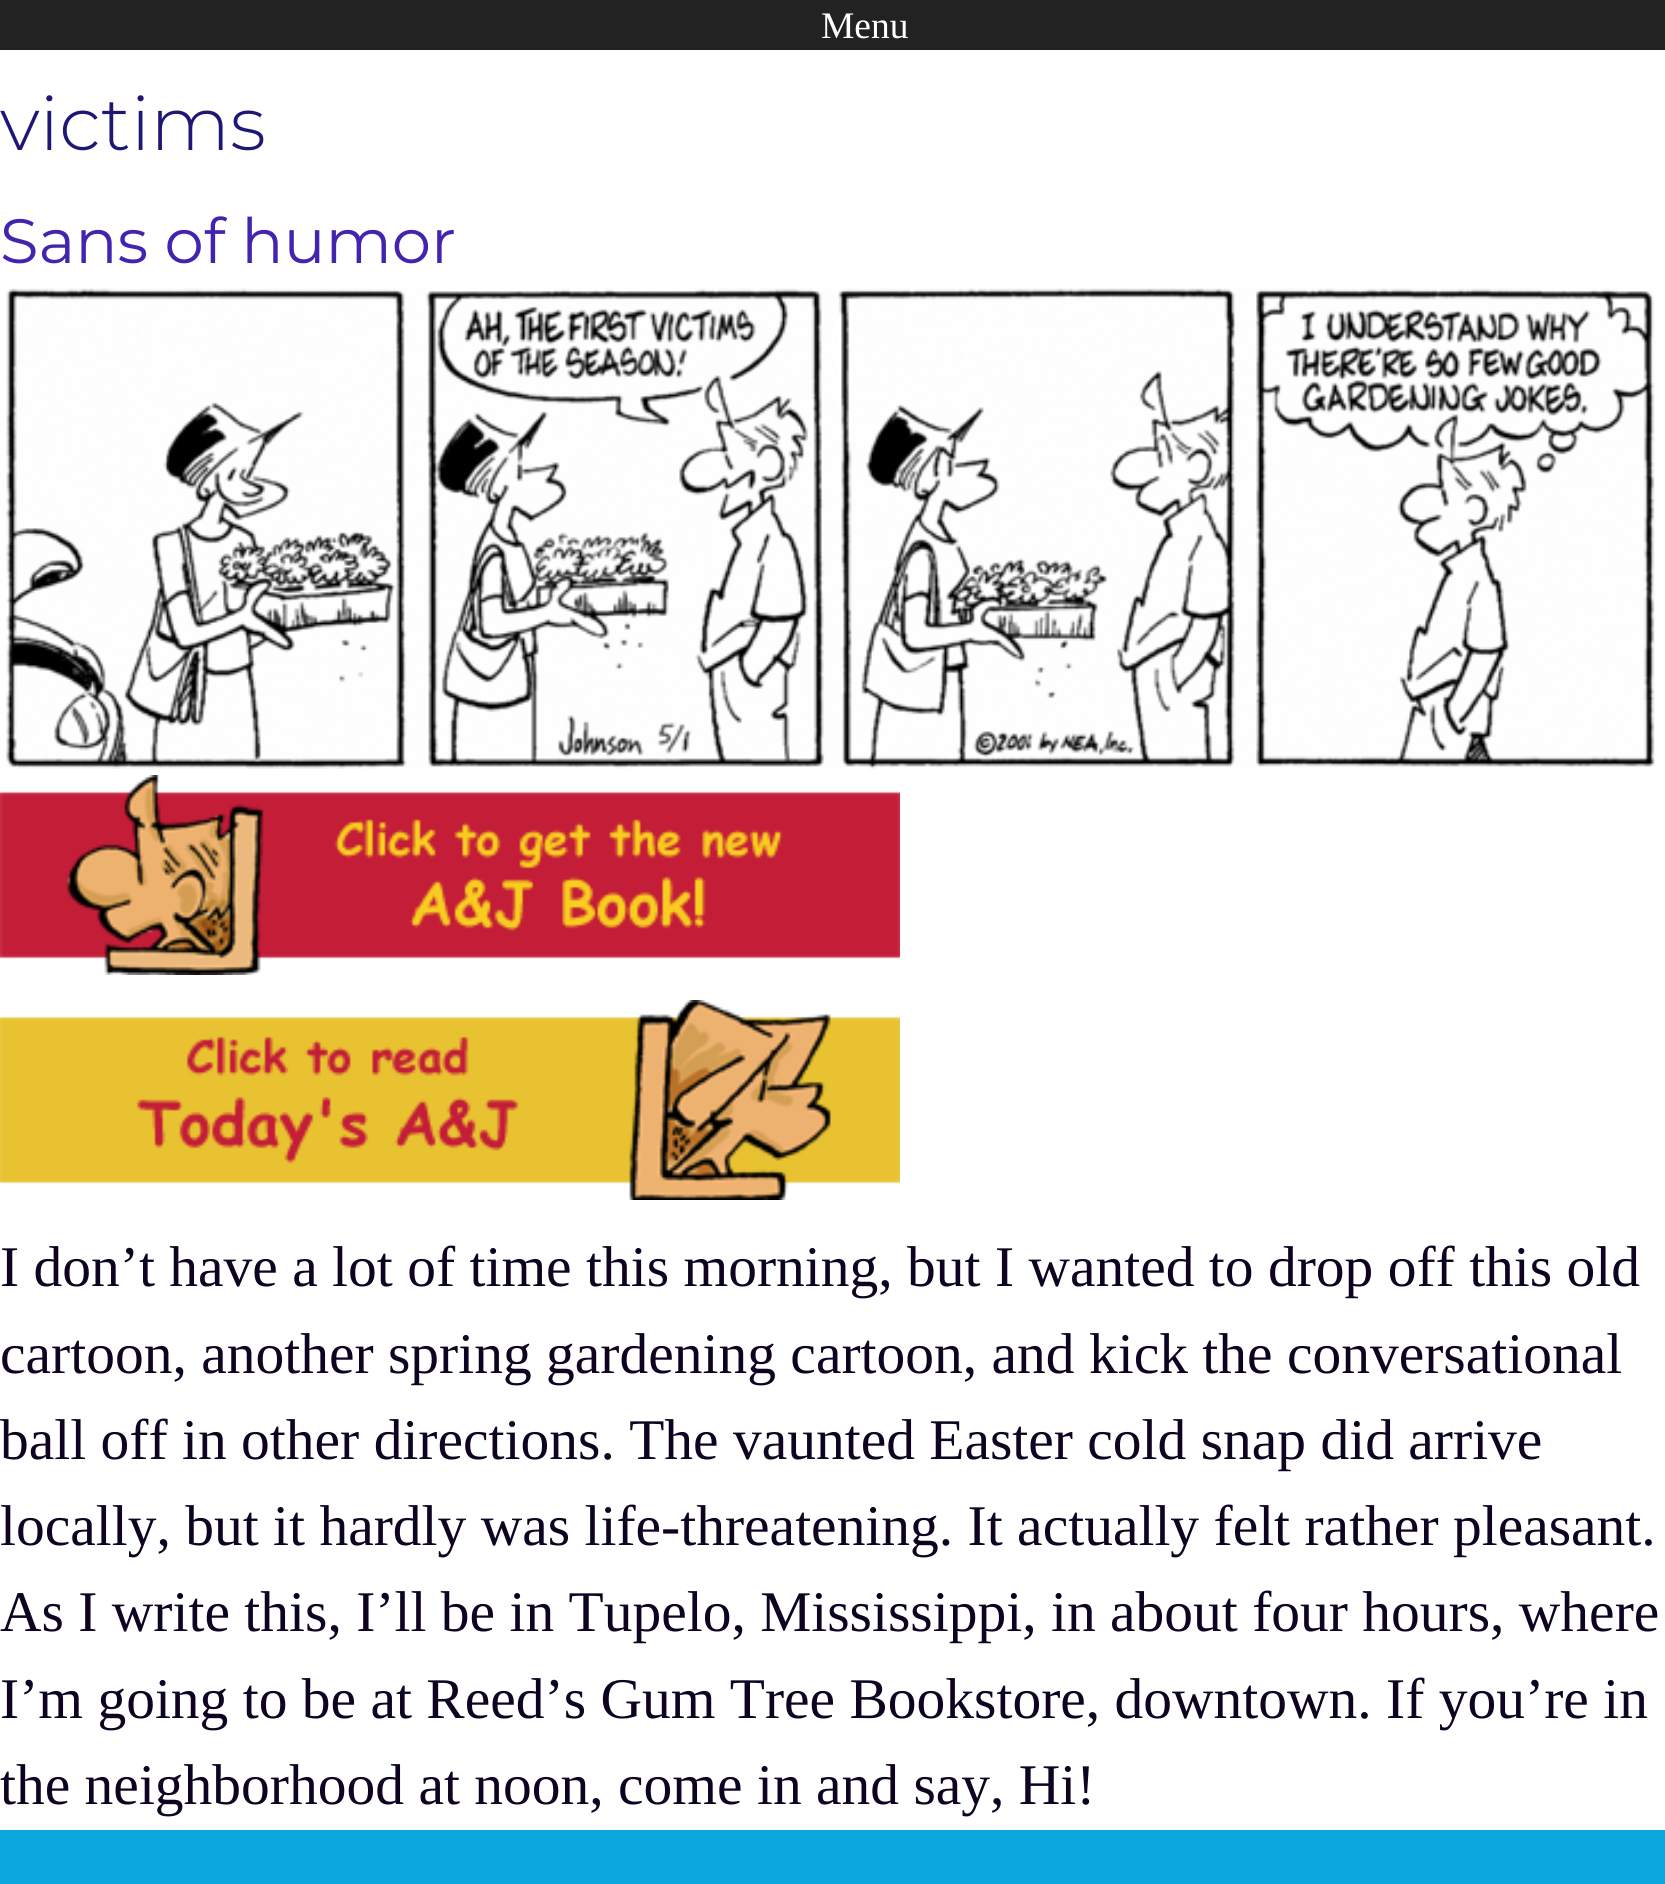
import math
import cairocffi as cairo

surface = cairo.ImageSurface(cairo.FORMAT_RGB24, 1665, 1884)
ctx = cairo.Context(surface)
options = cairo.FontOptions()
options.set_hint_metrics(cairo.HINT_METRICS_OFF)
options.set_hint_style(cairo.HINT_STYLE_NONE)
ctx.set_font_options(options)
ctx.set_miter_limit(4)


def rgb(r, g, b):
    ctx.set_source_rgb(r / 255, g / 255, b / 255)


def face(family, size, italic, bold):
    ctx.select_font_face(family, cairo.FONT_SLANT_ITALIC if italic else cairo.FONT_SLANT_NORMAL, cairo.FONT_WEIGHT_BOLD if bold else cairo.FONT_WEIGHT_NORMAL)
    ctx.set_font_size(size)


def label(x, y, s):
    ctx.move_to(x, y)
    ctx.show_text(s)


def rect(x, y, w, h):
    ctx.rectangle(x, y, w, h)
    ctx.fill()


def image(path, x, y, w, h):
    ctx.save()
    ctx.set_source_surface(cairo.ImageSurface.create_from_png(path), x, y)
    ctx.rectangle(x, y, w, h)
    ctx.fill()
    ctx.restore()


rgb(255, 255, 255)
ctx.paint()
rgb(34, 34, 34)
rect(0, 0, 1665, 50)
face('Liberation Serif', 37.5, 0, 0)
rgb(255, 255, 255)
label(821, 38, 'Menu')
face('Montserrat Light', 75, 0, 0)
rgb(31, 23, 117)
label(0, 150, 'victims')
face('Montserrat', 62.5, 0, 0)
rgb(66, 36, 175)
label(0, 263, 'Sans of humor')
image('image0.png', 6, 288, 1649, 481)
image('image1.png', 0, 775, 900, 200)
image('image2.png', 0, 1000, 900, 200)
face('Liberation Serif', 57.5, 0, 0)
rgb(14, 4, 33)
label(0, 1286, 'I don’t have a lot of time this morning, but I wanted to drop off this old')
label(0, 1373, 'cartoon, another spring gardening cartoon, and kick the conversational')
label(0, 1459, 'ball off in other directions. The vaunted Easter cold snap did arrive')
label(0, 1545, 'locally, but it hardly was life-threatening. It actually felt rather pleasant.')
label(0, 1631, 'As I write this, I’ll be in Tupelo, Mississippi, in about four hours, where')
label(0, 1718, 'I’m going to be at Reed’s Gum Tree Bookstore, downtown. If you’re in')
label(0, 1804, 'the neighborhood at noon, come in and say, Hi!')
rgb(13, 167, 224)
rect(0, 1830, 1665, 54)
surface.write_to_png('render.png')
